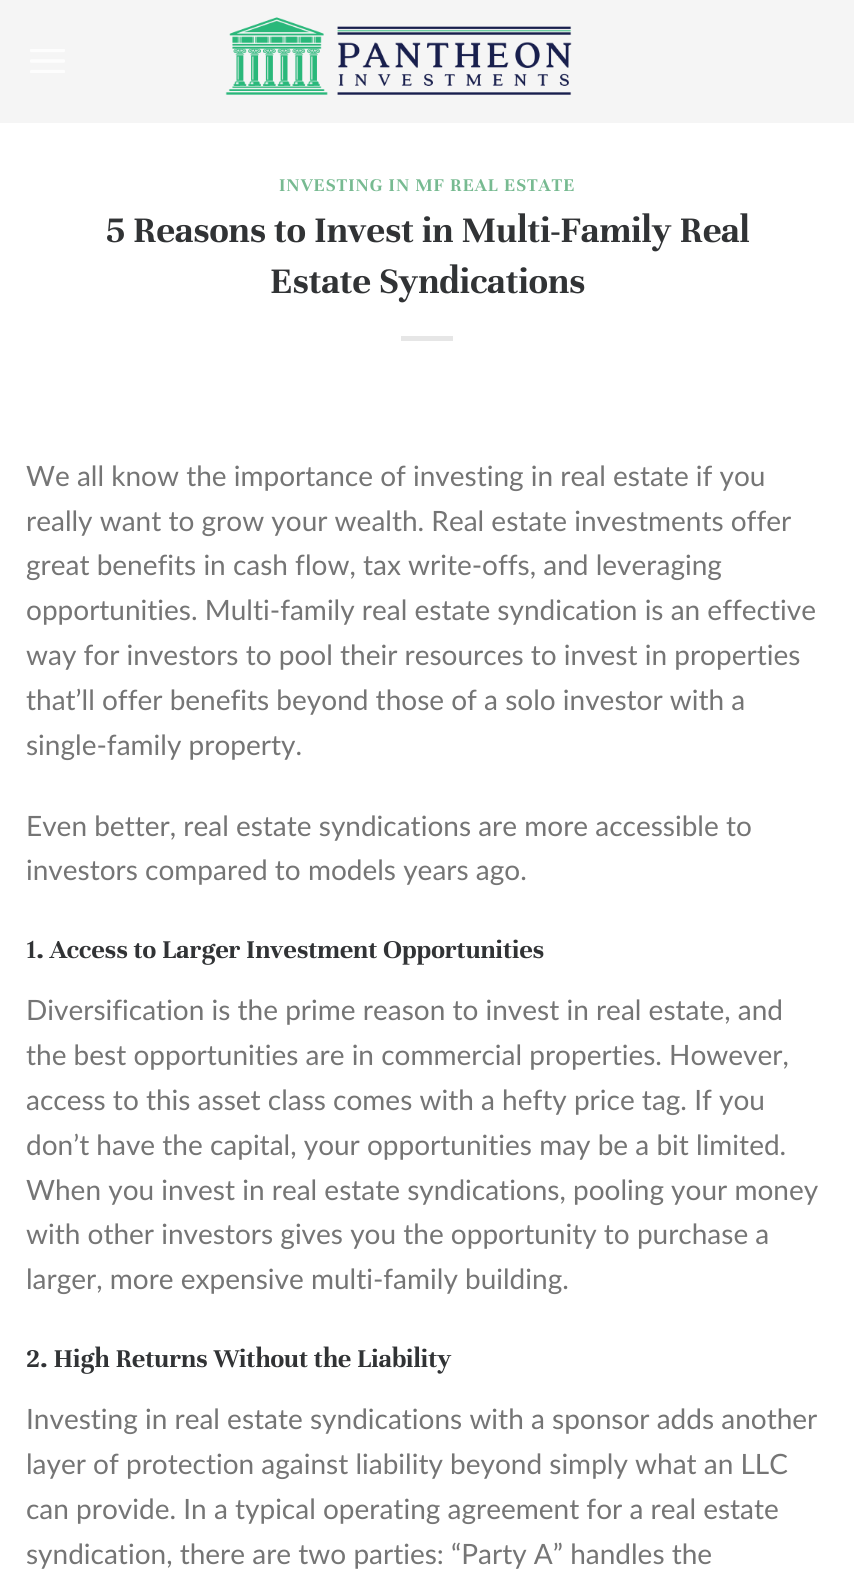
import math
import cairocffi as cairo

surface = cairo.ImageSurface(cairo.FORMAT_RGB24, 854, 1570)
ctx = cairo.Context(surface)
options = cairo.FontOptions()
options.set_hint_metrics(cairo.HINT_METRICS_OFF)
options.set_hint_style(cairo.HINT_STYLE_NONE)
ctx.set_font_options(options)
ctx.set_miter_limit(4)


def rgb(r, g, b):
    ctx.set_source_rgb(r / 255, g / 255, b / 255)


def face(family, size, italic, bold):
    ctx.select_font_face(family, cairo.FONT_SLANT_ITALIC if italic else cairo.FONT_SLANT_NORMAL, cairo.FONT_WEIGHT_BOLD if bold else cairo.FONT_WEIGHT_NORMAL)
    ctx.set_font_size(size)


def label(x, y, s):
    ctx.move_to(x, y)
    ctx.show_text(s)


def tracked(x, y, s, letter, word):
    ctx.move_to(x, y)
    for ch in s:
        ctx.show_text(ch)
        ctx.rel_move_to(letter + word * (ch == ' '), 0)


def rect(x, y, w, h):
    ctx.rectangle(x, y, w, h)
    ctx.fill()


def image(path, x, y, w, h):
    ctx.save()
    ctx.set_source_surface(cairo.ImageSurface.create_from_png(path), x, y)
    ctx.rectangle(x, y, w, h)
    ctx.fill()
    ctx.restore()


rgb(255, 255, 255)
ctx.paint()
rgb(245, 245, 245)
rect(0, 0, 854, 123)
image('image0.png', 30, 49, 35, 24)
image('image1.png', 225, 17, 347, 78)
face('Unna', 19.6, 0, 1)
rgb(119, 186, 145)
tracked(279, 191, 'INVESTING IN MF REAL ESTATE', 1, 0)
face('Unna', 39.25, 0, 1)
rgb(49, 51, 53)
label(106, 242, '5 Reasons to Invest in Multi-Family Real')
label(270, 293, 'Estate Syndications')
rgb(230, 230, 230)
rect(401, 336, 52, 5)
face('Lato', 28, 0, 0)
rgb(117, 117, 117)
label(26, 486, 'We all know the importance of investing in real estate if you')
label(26, 531, 'really want to grow your wealth. Real estate investments offer')
label(26, 575, 'great benefits in cash flow, tax write-offs, and leveraging')
label(26, 620, 'opportunities. Multi-family real estate syndication is an effective')
label(26, 665, 'way for investors to pool their resources to invest in properties')
label(26, 710, 'that’ll offer benefits beyond those of a solo investor with a')
label(26, 755, 'single-family property.')
label(26, 836, 'Even better, real estate syndications are more accessible to')
label(26, 880, 'investors compared to models years ago.')
face('Unna', 28, 0, 1)
rgb(49, 51, 53)
label(26, 958, '1. Access to Larger Investment Opportunities')
face('Lato', 28, 0, 0)
rgb(117, 117, 117)
label(26, 1020, 'Diversification is the prime reason to invest in real estate, and')
label(26, 1065, 'the best opportunities are in commercial properties. However,')
label(26, 1110, 'access to this asset class comes with a hefty price tag. If you')
label(26, 1155, 'don’t have the capital, your opportunities may be a bit limited.')
label(26, 1200, 'When you invest in real estate syndications, pooling your money')
label(26, 1244, 'with other investors gives you the opportunity to purchase a')
label(26, 1289, 'larger, more expensive multi-family building.')
face('Unna', 28, 0, 1)
rgb(49, 51, 53)
label(26, 1367, '2. High Returns Without the Liability')
face('Lato', 28, 0, 0)
rgb(117, 117, 117)
label(26, 1429, 'Investing in real estate syndications with a sponsor adds another')
label(26, 1474, 'layer of protection against liability beyond simply what an LLC')
label(26, 1519, 'can provide. In a typical operating agreement for a real estate')
label(26, 1564, 'syndication, there are two parties: “Party A” handles the')
surface.write_to_png('render.png')
